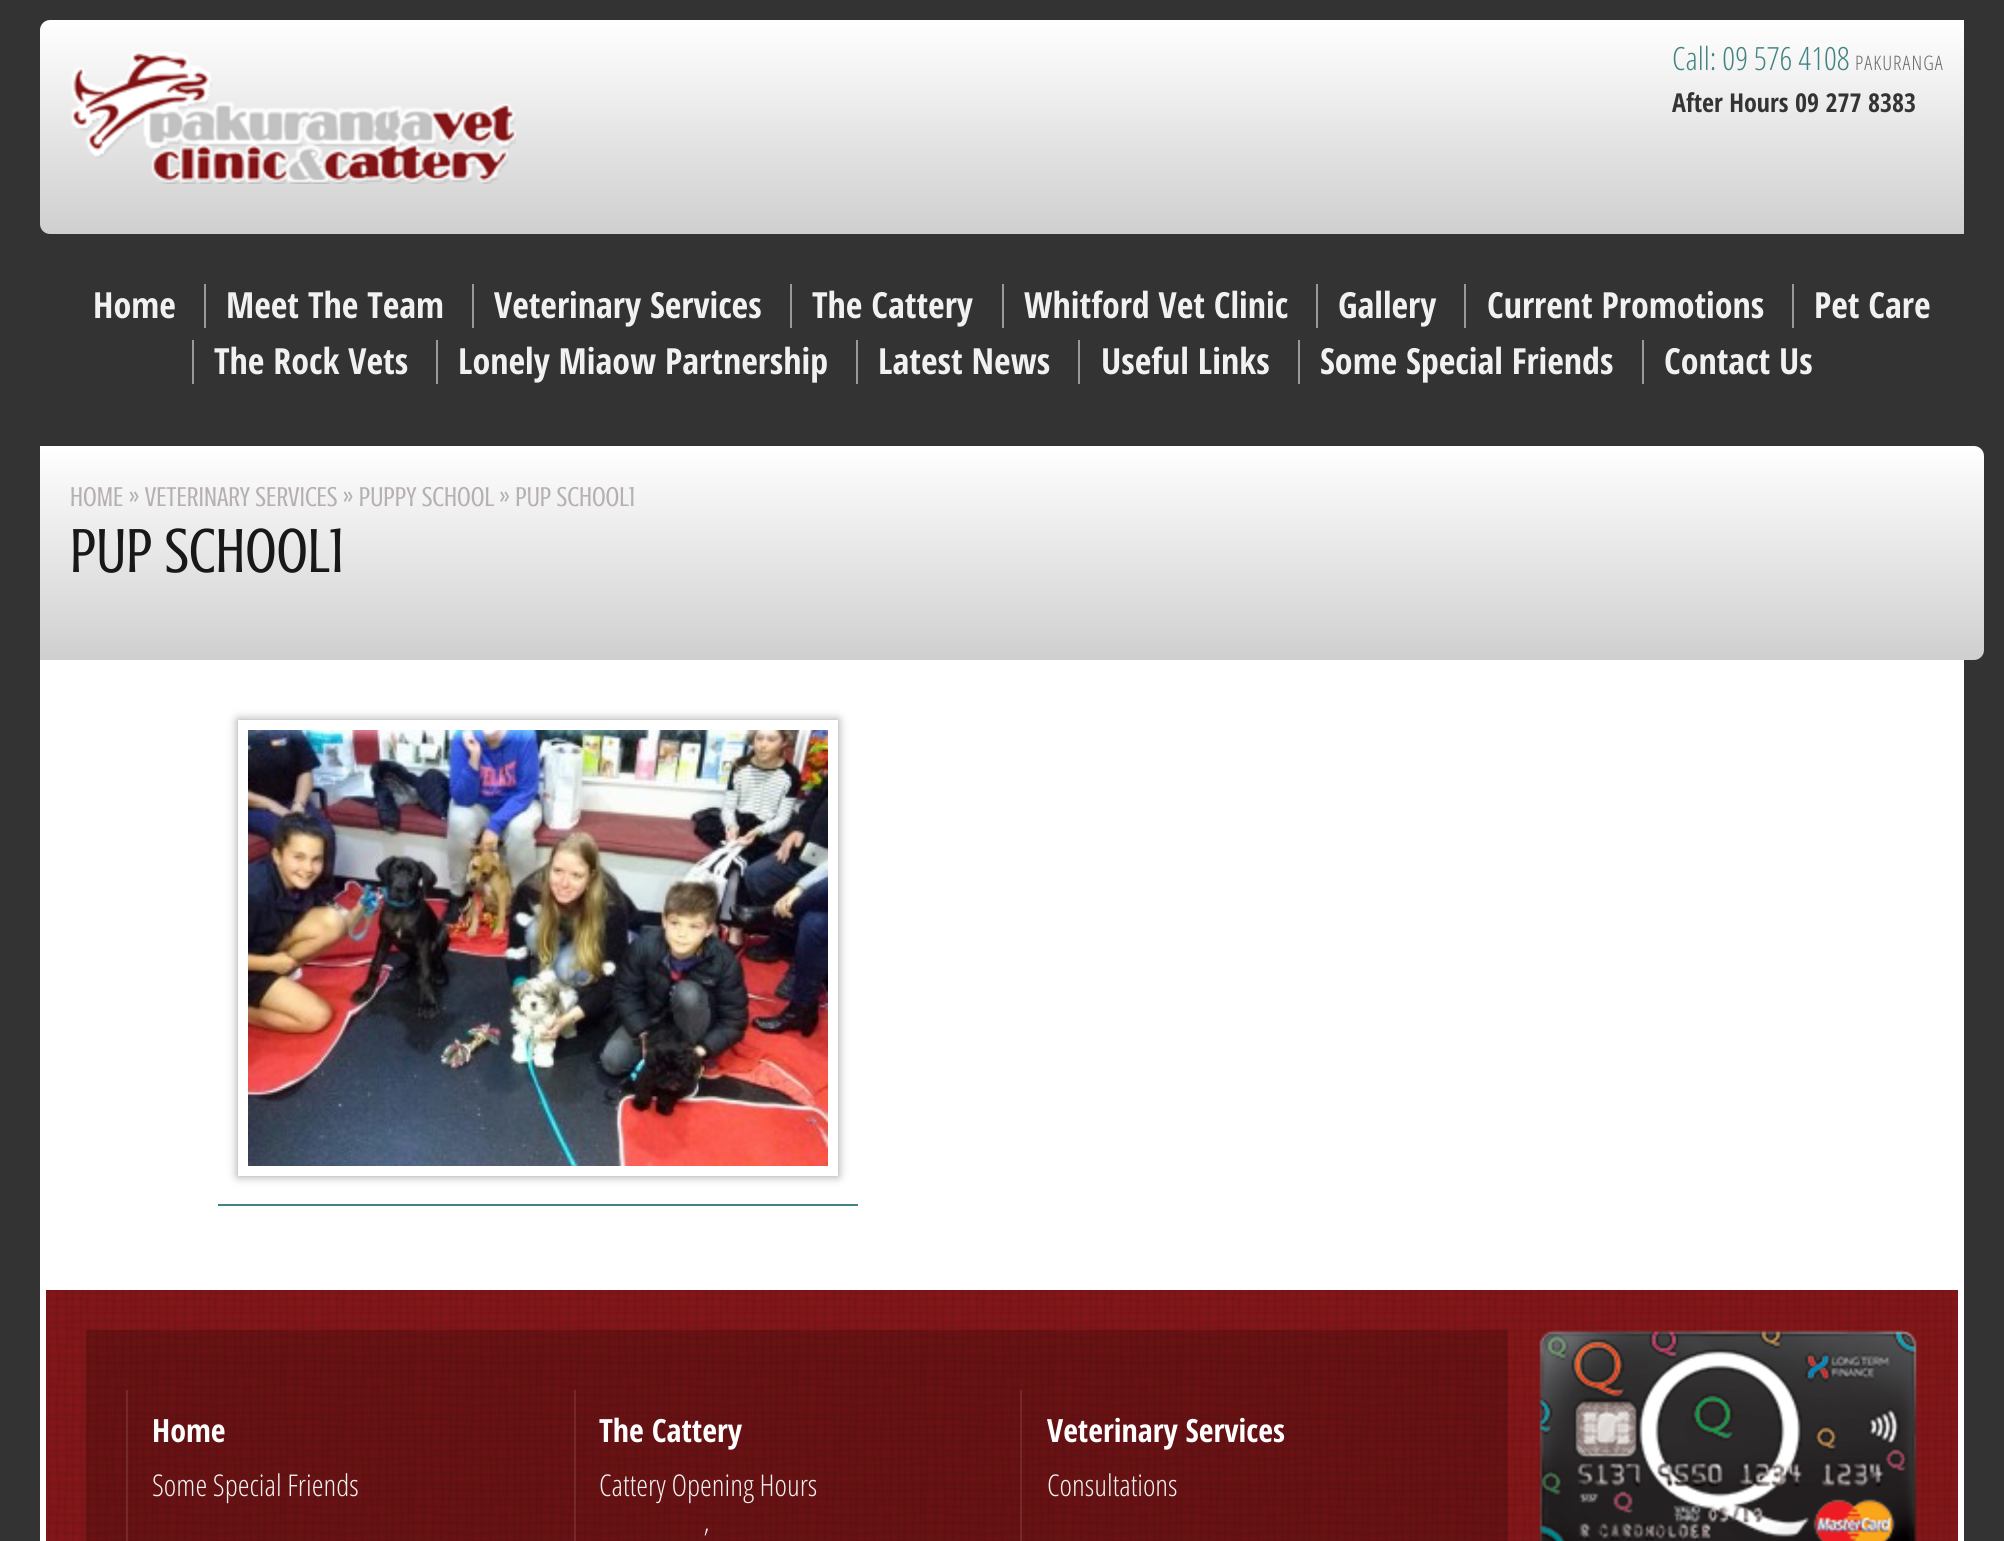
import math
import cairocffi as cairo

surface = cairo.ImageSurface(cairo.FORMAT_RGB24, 2004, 1541)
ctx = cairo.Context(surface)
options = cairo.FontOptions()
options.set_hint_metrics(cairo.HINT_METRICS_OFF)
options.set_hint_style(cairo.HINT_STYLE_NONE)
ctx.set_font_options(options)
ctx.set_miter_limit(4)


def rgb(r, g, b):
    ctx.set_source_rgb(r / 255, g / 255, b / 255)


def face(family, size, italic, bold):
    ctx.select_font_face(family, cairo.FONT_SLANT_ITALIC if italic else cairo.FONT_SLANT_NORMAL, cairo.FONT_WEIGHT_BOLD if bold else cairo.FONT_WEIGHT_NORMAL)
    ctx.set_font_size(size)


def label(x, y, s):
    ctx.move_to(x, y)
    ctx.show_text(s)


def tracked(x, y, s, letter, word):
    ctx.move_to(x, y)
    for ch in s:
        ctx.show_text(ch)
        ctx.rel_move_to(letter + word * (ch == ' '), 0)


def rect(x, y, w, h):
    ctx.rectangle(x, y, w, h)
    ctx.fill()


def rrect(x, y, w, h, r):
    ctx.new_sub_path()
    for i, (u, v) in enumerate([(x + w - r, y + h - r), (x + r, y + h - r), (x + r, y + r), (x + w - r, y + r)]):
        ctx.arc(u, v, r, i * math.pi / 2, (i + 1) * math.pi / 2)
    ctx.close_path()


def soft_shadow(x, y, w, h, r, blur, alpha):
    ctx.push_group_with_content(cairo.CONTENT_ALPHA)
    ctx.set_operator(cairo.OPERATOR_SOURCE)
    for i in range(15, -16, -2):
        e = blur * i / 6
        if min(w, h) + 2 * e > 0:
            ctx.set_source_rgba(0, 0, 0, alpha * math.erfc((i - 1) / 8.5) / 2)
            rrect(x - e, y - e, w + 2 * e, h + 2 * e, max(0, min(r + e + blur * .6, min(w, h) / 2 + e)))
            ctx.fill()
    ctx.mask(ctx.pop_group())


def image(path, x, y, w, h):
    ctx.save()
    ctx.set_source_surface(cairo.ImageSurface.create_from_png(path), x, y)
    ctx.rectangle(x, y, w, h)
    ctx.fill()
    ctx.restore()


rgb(51, 51, 51)
ctx.paint()
gradient = cairo.LinearGradient(1002, 20, 1002, 234)
gradient.add_color_stop_rgba(0, 1, 1, 1, 1)
gradient.add_color_stop_rgba(1, 0.812, 0.812, 0.812, 1)
ctx.set_source(gradient)
ctx.new_path()
ctx.move_to(50, 20)
ctx.line_to(1964, 20)
ctx.line_to(1964, 234)
ctx.line_to(50, 234)
ctx.curve_to(44.5, 234, 40, 229.5, 40, 224)
ctx.line_to(40, 30)
ctx.curve_to(40, 24.5, 44.5, 20, 50, 20)
ctx.close_path()
ctx.fill()
image('image0.png', 70, 52, 446, 132)
face('Open Sans Condensed Light', 32, 0, 0)
rgb(67, 132, 130)
label(1672, 70, 'Call: 09 576 4108')
face('Open Sans Condensed Light', 20, 0, 0)
rgb(103, 103, 103)
tracked(1855, 70, 'PAKURANGA', 1, 0)
face('Open Sans Condensed', 26, 0, 1)
rgb(52, 52, 52)
label(1672, 112, 'After Hours 09 277 8383')
face('Open Sans Condensed', 36, 0, 1)
rgb(241, 241, 241)
label(93, 318, 'Home')
rgb(153, 153, 153)
rect(204, 284, 2, 44)
rgb(241, 241, 241)
label(226, 318, 'Meet The Team')
rgb(153, 153, 153)
rect(472, 284, 2, 44)
rgb(241, 241, 241)
label(494, 318, 'Veterinary Services')
rgb(153, 153, 153)
rect(790, 284, 2, 44)
rgb(241, 241, 241)
label(812, 318, 'The Cattery')
rgb(153, 153, 153)
rect(1002, 284, 2, 44)
rgb(241, 241, 241)
label(1024, 318, 'Whitford Vet Clinic')
rgb(153, 153, 153)
rect(1316, 284, 2, 44)
rgb(241, 241, 241)
label(1338, 318, 'Gallery')
rgb(153, 153, 153)
rect(1464, 284, 2, 44)
rgb(241, 241, 241)
label(1487, 318, 'Current Promotions')
rgb(153, 153, 153)
rect(1792, 284, 2, 44)
rgb(241, 241, 241)
label(1814, 318, 'Pet Care')
rgb(153, 153, 153)
rect(192, 340, 2, 44)
rgb(241, 241, 241)
label(214, 374, 'The Rock Vets')
rgb(153, 153, 153)
rect(436, 340, 2, 44)
rgb(241, 241, 241)
label(458, 374, 'Lonely Miaow Partnership')
rgb(153, 153, 153)
rect(856, 340, 2, 44)
rgb(241, 241, 241)
label(878, 374, 'Latest News')
rgb(153, 153, 153)
rect(1078, 340, 2, 44)
rgb(241, 241, 241)
label(1101, 374, 'Useful Links')
rgb(153, 153, 153)
rect(1298, 340, 2, 44)
rgb(241, 241, 241)
label(1320, 374, 'Some Special Friends')
rgb(153, 153, 153)
rect(1642, 340, 2, 44)
rgb(241, 241, 241)
label(1664, 374, 'Contact Us')
rgb(255, 255, 255)
rect(40, 660, 1924, 630)
gradient = cairo.LinearGradient(1002, 446, 1002, 660)
gradient.add_color_stop_rgba(0, 1, 1, 1, 1)
gradient.add_color_stop_rgba(1, 0.812, 0.812, 0.812, 1)
ctx.set_source(gradient)
rect(40, 446, 1924, 214)
face('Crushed', 28, 0, 0)
rgb(182, 176, 176)
label(70, 506, 'HOME » VETERINARY SERVICES » PUPPY SCHOOL » PUP SCHOOL1')
gradient = cairo.LinearGradient(1974, 446, 1974, 660)
gradient.add_color_stop_rgba(0, 1, 1, 1, 1)
gradient.add_color_stop_rgba(1, 0.812, 0.812, 0.812, 1)
ctx.set_source(gradient)
ctx.new_path()
ctx.move_to(1964, 446)
ctx.line_to(1974, 446)
ctx.curve_to(1979.5, 446, 1984, 450.5, 1984, 456)
ctx.line_to(1984, 650)
ctx.curve_to(1984, 655.5, 1979.5, 660, 1974, 660)
ctx.line_to(1964, 660)
ctx.close_path()
ctx.fill()
face('Crushed', 64, 0, 0)
rgb(24, 24, 24)
label(70, 572, 'PUP SCHOOL1')
ctx.save()
ctx.set_fill_rule(cairo.FILL_RULE_EVEN_ODD)
ctx.new_path()
ctx.move_to(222, 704)
ctx.line_to(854, 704)
ctx.line_to(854, 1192)
ctx.line_to(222, 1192)
ctx.close_path()
ctx.move_to(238, 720)
ctx.line_to(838, 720)
ctx.line_to(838, 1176)
ctx.line_to(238, 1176)
ctx.close_path()
ctx.clip()
rgb(0, 0, 0)
soft_shadow(238, 720, 600, 456, 0, 5, 0.4)
ctx.restore()
image('image1.png', 248, 730, 580, 436)
rgb(67, 132, 130)
rect(218, 1204, 640, 2)
image('image2.png', 46, 1290, 1912, 251)
rgb(255, 255, 255)
ctx.set_fill_rule(cairo.FILL_RULE_EVEN_ODD)
ctx.new_path()
ctx.move_to(40, 1290)
ctx.line_to(1964, 1290)
ctx.line_to(1964, 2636)
ctx.curve_to(1964, 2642, 1960, 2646, 1954, 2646)
ctx.line_to(50, 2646)
ctx.curve_to(44, 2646, 40, 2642, 40, 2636)
ctx.close_path()
ctx.move_to(46, 1290)
ctx.line_to(1958, 1290)
ctx.line_to(1958, 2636)
ctx.curve_to(1958, 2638, 1956, 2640, 1954, 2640)
ctx.line_to(50, 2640)
ctx.curve_to(48, 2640, 46, 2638, 46, 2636)
ctx.close_path()
ctx.fill()
ctx.set_source_rgba(0, 0, 0, 0.2)
rect(86, 1330, 1422, 211)
ctx.set_source_rgba(1, 1, 1, 0.1)
rect(126, 1390, 2, 151)
face('Open Sans Condensed', 32, 0, 1)
rgb(255, 255, 255)
label(152, 1442, 'Home')
face('Open Sans Condensed Light', 30, 0, 0)
rgb(241, 241, 241)
label(152, 1496, 'Some Special Friends')
ctx.set_source_rgba(1, 1, 1, 0.1)
rect(574, 1390, 2, 151)
face('Open Sans Condensed', 32, 0, 1)
rgb(255, 255, 255)
label(599, 1442, 'The Cattery')
face('Open Sans Condensed Light', 30, 0, 0)
rgb(241, 241, 241)
label(599, 1496, 'Cattery Opening Hours')
label(704, 1550, '’')
ctx.set_source_rgba(1, 1, 1, 0.1)
rect(1020, 1390, 2, 151)
face('Open Sans Condensed', 32, 0, 1)
rgb(255, 255, 255)
label(1047, 1442, 'Veterinary Services')
face('Open Sans Condensed Light', 30, 0, 0)
rgb(241, 241, 241)
label(1047, 1496, 'Consultations')
image('image3.png', 1539, 1330, 378, 211)
surface.write_to_png('render.png')
